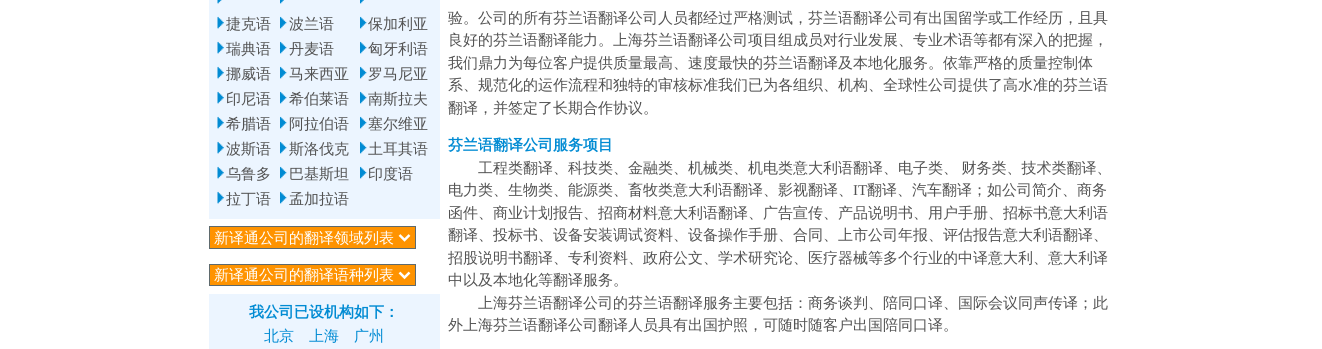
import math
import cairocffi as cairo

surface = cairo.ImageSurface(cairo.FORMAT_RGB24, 1322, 349)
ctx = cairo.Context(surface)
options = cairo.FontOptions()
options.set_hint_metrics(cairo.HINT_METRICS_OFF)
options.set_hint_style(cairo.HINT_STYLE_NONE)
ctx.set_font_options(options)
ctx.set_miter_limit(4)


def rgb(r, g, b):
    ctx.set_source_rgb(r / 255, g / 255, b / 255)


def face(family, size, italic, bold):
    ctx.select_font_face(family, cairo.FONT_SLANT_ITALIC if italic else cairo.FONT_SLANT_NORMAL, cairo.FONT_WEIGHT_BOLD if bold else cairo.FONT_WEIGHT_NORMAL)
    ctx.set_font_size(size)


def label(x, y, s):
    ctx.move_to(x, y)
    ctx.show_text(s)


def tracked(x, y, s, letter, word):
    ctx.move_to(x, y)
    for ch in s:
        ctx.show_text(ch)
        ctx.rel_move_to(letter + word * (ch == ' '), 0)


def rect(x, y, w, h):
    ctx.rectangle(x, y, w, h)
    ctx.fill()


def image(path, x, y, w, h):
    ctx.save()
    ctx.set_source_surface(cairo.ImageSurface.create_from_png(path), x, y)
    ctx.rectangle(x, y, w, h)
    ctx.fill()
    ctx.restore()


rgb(255, 255, 255)
ctx.paint()
rgb(236, 245, 255)
rect(209, 0, 231, 349)
image('image0.png', 217, 0, 5, 4)
image('image1.png', 280, 0, 4, 4)
image('image2.png', 360, 0, 4, 4)
image('image3.png', 217, 16, 7, 13)
face('WenQuanYi Zen Hei Medium', 15, 0, 0)
rgb(82, 82, 82)
label(226, 29, '捷克语')
image('image4.png', 280, 16, 7, 13)
label(289, 29, '波兰语')
image('image5.png', 360, 16, 7, 13)
label(368, 29, '保加利亚')
image('image3.png', 217, 41, 7, 13)
label(226, 54, '瑞典语')
image('image4.png', 280, 41, 7, 13)
label(289, 54, '丹麦语')
image('image5.png', 360, 41, 7, 13)
label(368, 54, '匈牙利语')
image('image3.png', 217, 66, 7, 13)
label(226, 79, '挪威语')
image('image4.png', 280, 66, 7, 13)
label(289, 79, '马来西亚')
image('image5.png', 360, 66, 7, 13)
label(368, 79, '罗马尼亚')
image('image3.png', 217, 91, 7, 13)
label(226, 104, '印尼语')
image('image4.png', 280, 91, 7, 13)
label(289, 104, '希伯莱语')
image('image5.png', 360, 91, 7, 13)
label(368, 104, '南斯拉夫')
image('image3.png', 217, 116, 7, 13)
label(226, 129, '希腊语')
image('image4.png', 280, 116, 7, 13)
label(289, 129, '阿拉伯语')
image('image5.png', 360, 116, 7, 13)
label(368, 129, '塞尔维亚')
image('image3.png', 217, 141, 7, 13)
label(226, 154, '波斯语')
image('image4.png', 280, 141, 7, 13)
label(289, 154, '斯洛伐克')
image('image5.png', 360, 141, 7, 13)
label(368, 154, '土耳其语')
image('image3.png', 217, 166, 7, 13)
label(226, 179, '乌鲁多')
image('image4.png', 280, 166, 7, 13)
label(289, 179, '巴基斯坦')
image('image5.png', 360, 166, 7, 13)
label(368, 179, '印度语')
image('image3.png', 217, 191, 7, 13)
label(226, 204, '拉丁语')
image('image4.png', 280, 191, 7, 13)
label(289, 204, '孟加拉语')
rgb(255, 255, 255)
rect(209, 219, 231, 75)
rgb(255, 147, 0)
ctx.rectangle(209.5, 226.5, 206, 22)
ctx.fill_preserve()
rgb(95, 106, 109)
ctx.set_line_width(1)
ctx.stroke()
ctx.new_path()
ctx.move_to(399.5, 235)
ctx.line_to(404.5, 240)
ctx.line_to(409.5, 235)
rgb(255, 255, 255)
ctx.set_line_width(2.5)
ctx.stroke()
label(214, 243, '新译通公司的翻译领域列表')
rgb(255, 147, 0)
ctx.rectangle(209.5, 264.5, 206, 21)
ctx.fill_preserve()
rgb(95, 106, 109)
ctx.set_line_width(1)
ctx.stroke()
ctx.new_path()
ctx.move_to(399.5, 272.5)
ctx.line_to(404.5, 277.5)
ctx.line_to(409.5, 272.5)
rgb(255, 255, 255)
ctx.set_line_width(2.5)
ctx.stroke()
label(214, 280, '新译通公司的翻译语种列表')
face('WenQuanYi Zen Hei', 15, 0, 1)
rgb(1, 139, 211)
label(249, 317, '我公司已设机构如下：')
face('WenQuanYi Zen Hei Medium', 15, 0, 0)
label(264, 341, '北京')
label(309, 341, '上海')
label(354, 341, '广州')
rgb(82, 82, 82)
label(448, 23, '验。公司的所有芬兰语翻译公司人员都经过严格测试，芬兰语翻译公司有出国留学或工作经历，且具')
label(448, 45, '良好的芬兰语翻译能力。上海芬兰语翻译公司项目组成员对行业发展、专业术语等都有深入的把握，')
label(448, 68, '我们鼎力为每位客户提供质量最高、速度最快的芬兰语翻译及本地化服务。依靠严格的质量控制体')
label(448, 90, '系、规范化的运作流程和独特的审核标准我们已为各组织、机构、全球性公司提供了高水准的芬兰语')
label(448, 113, '翻译，并签定了长期合作协议。')
face('WenQuanYi Zen Hei', 15, 0, 1)
rgb(1, 139, 211)
label(448, 150, '芬兰语翻译公司服务项目')
face('WenQuanYi Zen Hei Medium', 15, 0, 0)
rgb(82, 82, 82)
tracked(478, 173, '工程类翻译、科技类、金融类、机械类、机电类意大利语翻译、电子类、 财务类、技术类翻译、', 0, -1)
label(448, 195, '电力类、生物类、能源类、畜牧类意大利语翻译、影视翻译、')
face('Liberation Serif', 15, 0, 0)
label(853, 195, 'IT')
face('WenQuanYi Zen Hei Medium', 15, 0, 0)
label(867, 195, '翻译、汽车翻译；如公司简介、商务')
label(448, 218, '函件、商业计划报告、招商材料意大利语翻译、广告宣传、产品说明书、用户手册、招标书意大利语')
label(448, 240, '翻译、投标书、设备安装调试资料、设备操作手册、合同、上市公司年报、评估报告意大利语翻译、')
label(448, 263, '招股说明书翻译、专利资料、政府公文、学术研究论、医疗器械等多个行业的中译意大利、意大利译')
label(448, 285, '中以及本地化等翻译服务。')
label(478, 308, '上海芬兰语翻译公司的芬兰语翻译服务主要包括：商务谈判、陪同口译、国际会议同声传译；此')
label(448, 330, '外上海芬兰语翻译公司翻译人员具有出国护照，可随时随客户出国陪同口译。')
surface.write_to_png('render.png')
